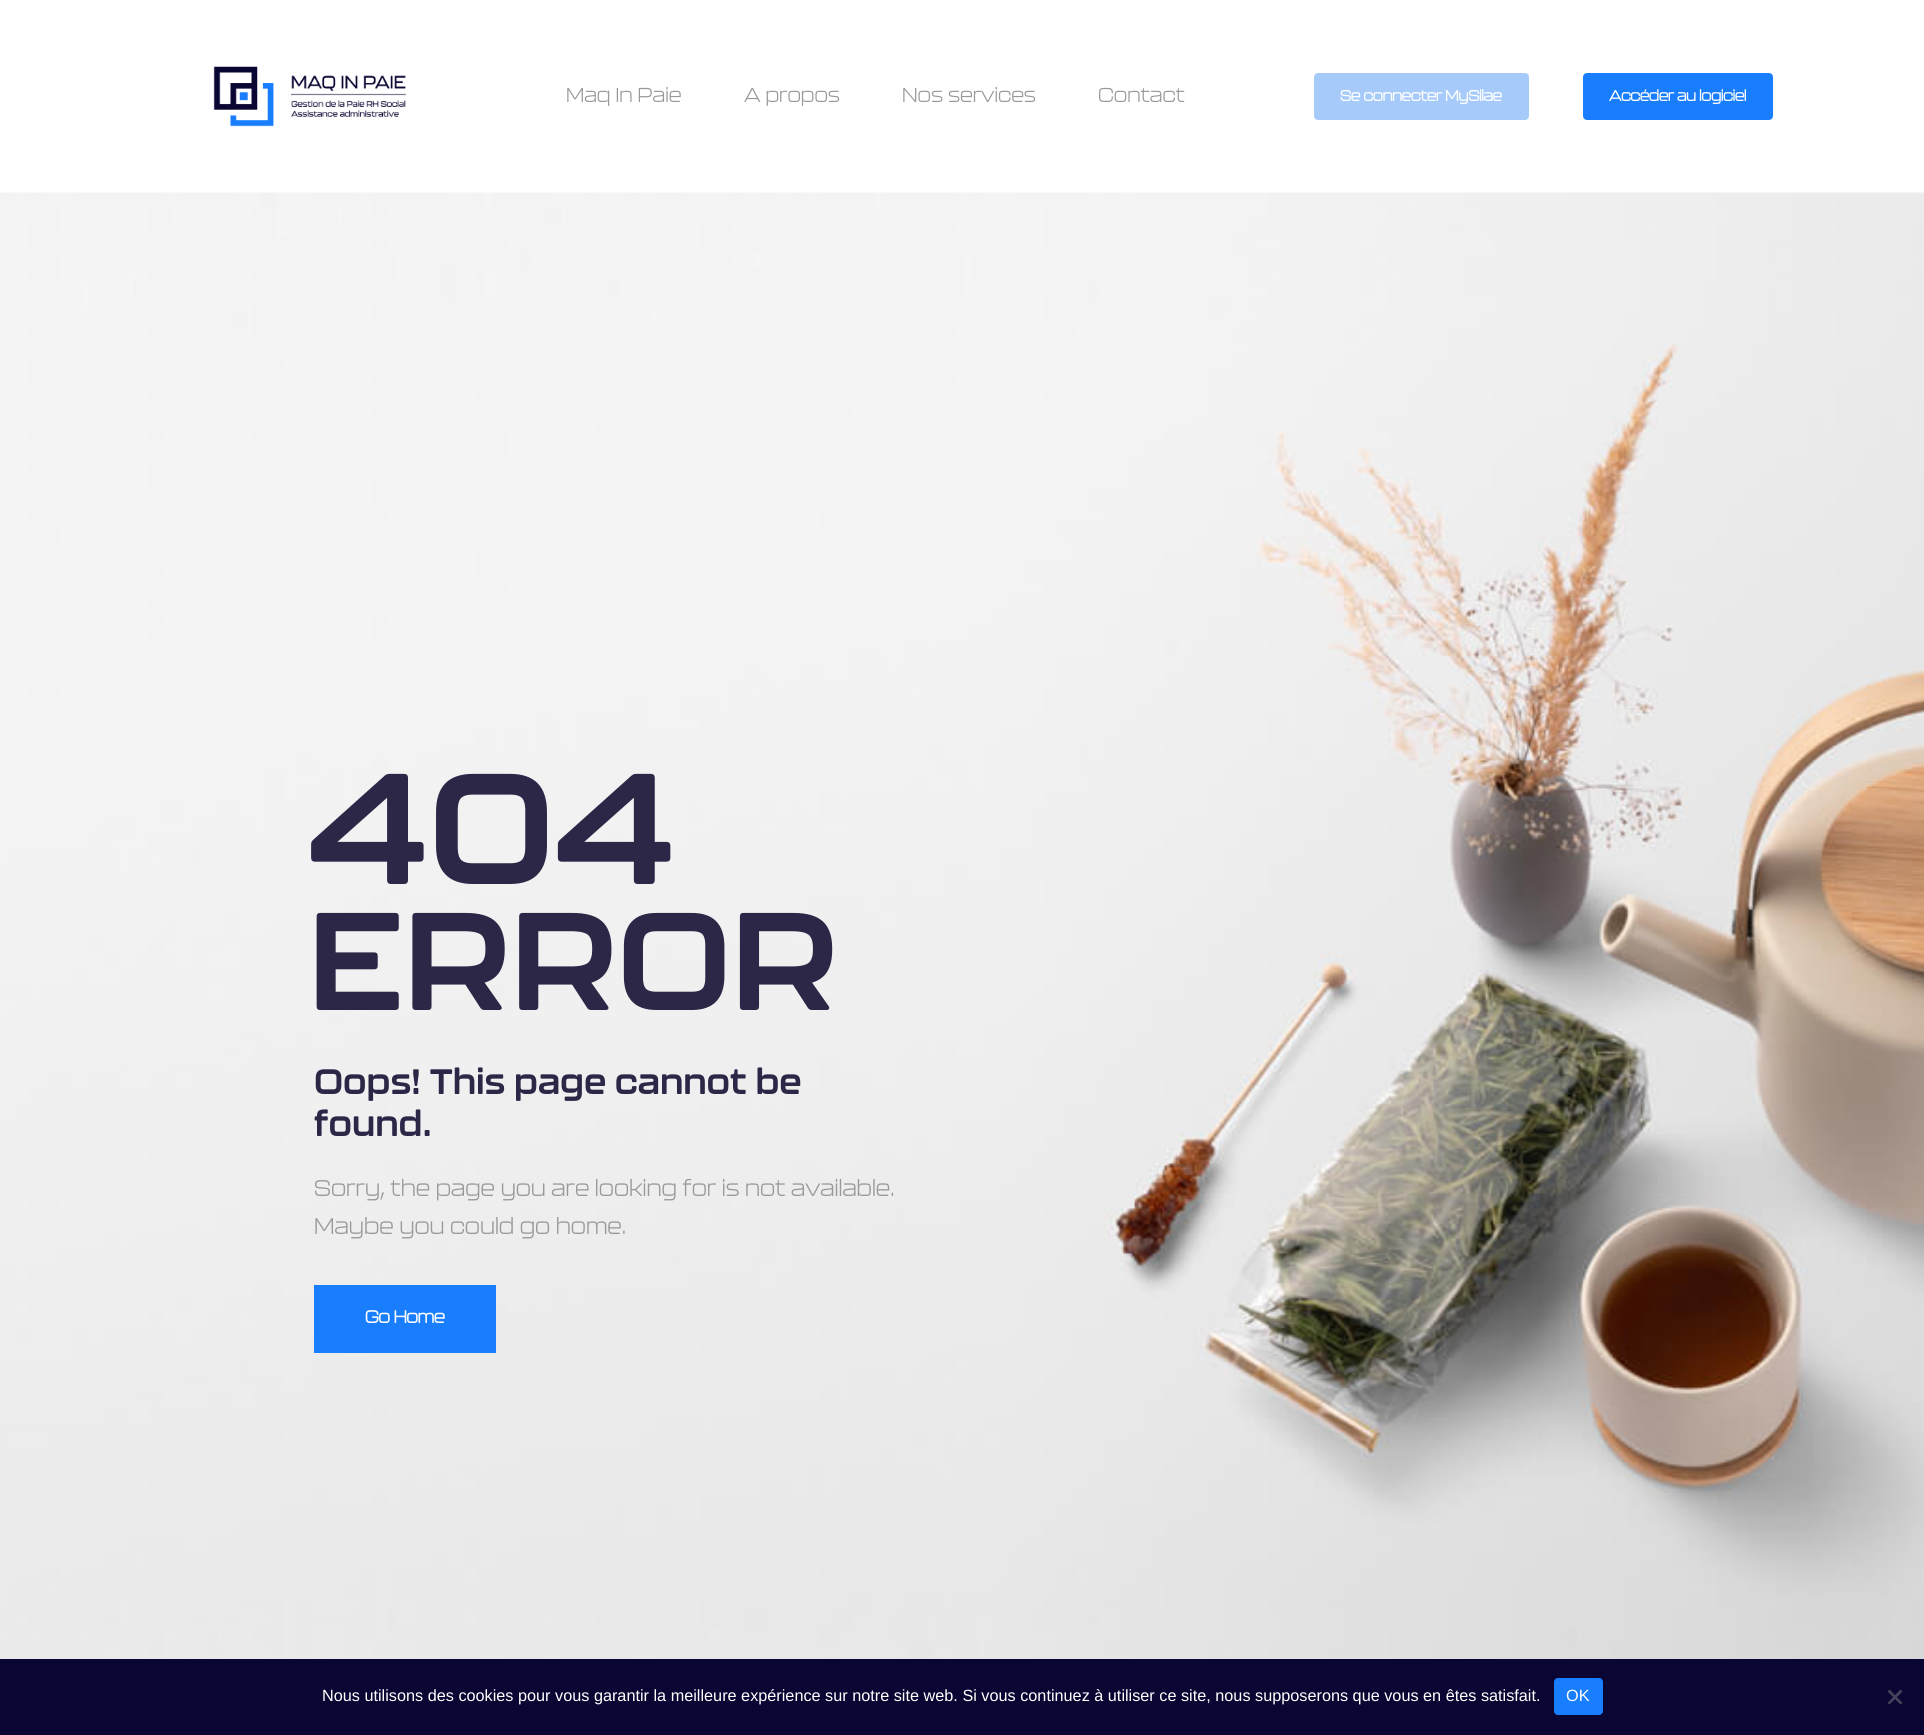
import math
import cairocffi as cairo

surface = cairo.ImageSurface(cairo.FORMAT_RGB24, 1924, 1735)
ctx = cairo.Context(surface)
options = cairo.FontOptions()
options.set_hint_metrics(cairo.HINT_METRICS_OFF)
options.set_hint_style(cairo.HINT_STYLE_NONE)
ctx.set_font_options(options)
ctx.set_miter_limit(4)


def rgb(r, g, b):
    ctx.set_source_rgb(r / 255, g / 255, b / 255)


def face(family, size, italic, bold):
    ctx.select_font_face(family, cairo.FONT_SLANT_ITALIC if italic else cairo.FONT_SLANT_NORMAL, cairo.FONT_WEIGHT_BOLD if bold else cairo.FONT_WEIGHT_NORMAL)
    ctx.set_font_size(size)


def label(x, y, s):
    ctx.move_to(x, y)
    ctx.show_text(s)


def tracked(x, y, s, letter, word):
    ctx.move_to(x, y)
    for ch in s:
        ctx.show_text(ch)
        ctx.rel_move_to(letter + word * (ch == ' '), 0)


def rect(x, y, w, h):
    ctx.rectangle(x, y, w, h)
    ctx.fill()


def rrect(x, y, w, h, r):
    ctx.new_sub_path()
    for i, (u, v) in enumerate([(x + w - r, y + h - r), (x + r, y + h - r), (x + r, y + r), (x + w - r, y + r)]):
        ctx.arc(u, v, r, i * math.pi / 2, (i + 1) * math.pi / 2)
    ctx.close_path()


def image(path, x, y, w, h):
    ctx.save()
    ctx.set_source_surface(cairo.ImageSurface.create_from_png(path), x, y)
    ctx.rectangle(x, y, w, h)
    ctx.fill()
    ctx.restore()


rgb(255, 255, 255)
ctx.paint()
image('image0.png', 213, 66, 194, 61)
face('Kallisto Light', 20, 0, 0)
rgb(153, 153, 153)
label(566, 102, 'Maq In Paie')
label(744, 102, 'A propos')
label(902, 102, 'Nos services')
label(1098, 102, 'Contact')
rgb(166, 203, 250)
rrect(1315.5, 74.5, 212, 44, 2.5)
ctx.fill_preserve()
ctx.set_line_width(3)
ctx.stroke()
face('Kallisto', 15, 0, 1)
rgb(255, 255, 255)
tracked(1340, 101, 'Se connecter MySilae', -0.4, 0)
rgb(25, 126, 254)
rrect(1584.5, 74.5, 187, 44, 2.5)
ctx.fill_preserve()
ctx.stroke()
rgb(255, 255, 255)
tracked(1609, 101, 'Accéder au logiciel', -0.4, 0)
image('image1.png', 0, 192, 1924, 1467)
face('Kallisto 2', 156, 0, 1)
rgb(44, 38, 71)
label(308, 884, '404')
face('Kallisto 2', 137.5, 0, 1)
label(308, 1010, 'ERROR')
face('Kallisto 2', 35, 0, 1)
label(314, 1094, 'Oops! This page cannot be')
label(314, 1136, 'found.')
face('Kallisto Light', 22.5, 0, 0)
rgb(153, 153, 153)
label(314, 1196, 'Sorry, the page you are looking for is not available.')
label(314, 1234, 'Maybe you could go home.')
rgb(25, 126, 254)
rect(314, 1285, 182, 68)
face('Kallisto', 17.5, 0, 1)
rgb(255, 255, 255)
tracked(365, 1323, 'Go Home', -0.5, 0)
rgb(10, 6, 51)
rect(0, 1659, 1924, 76)
face('Liberation Sans', 16.25, 0, 0)
rgb(255, 255, 255)
label(322, 1701, 'Nous utilisons des cookies pour vous garantir la meilleure expérience sur notre site web. Si vous continuez à utiliser ce site, nous supposerons que vous en êtes satisfait.')
rgb(25, 126, 254)
rrect(1554, 1678, 49, 37, 4)
ctx.fill()
rgb(255, 255, 255)
label(1566, 1701, 'OK')
rgb(69, 67, 90)
ctx.new_path()
ctx.move_to(1900.5, 1689.5)
ctx.line_to(1902.5, 1691.5)
ctx.line_to(1889.5, 1704.5)
ctx.line_to(1887.5, 1703)
ctx.close_path()
ctx.fill()
ctx.new_path()
ctx.move_to(1887.5, 1691.5)
ctx.line_to(1889.5, 1689.5)
ctx.line_to(1902.5, 1703)
ctx.line_to(1900.5, 1704.5)
ctx.close_path()
ctx.fill()
surface.write_to_png('render.png')
